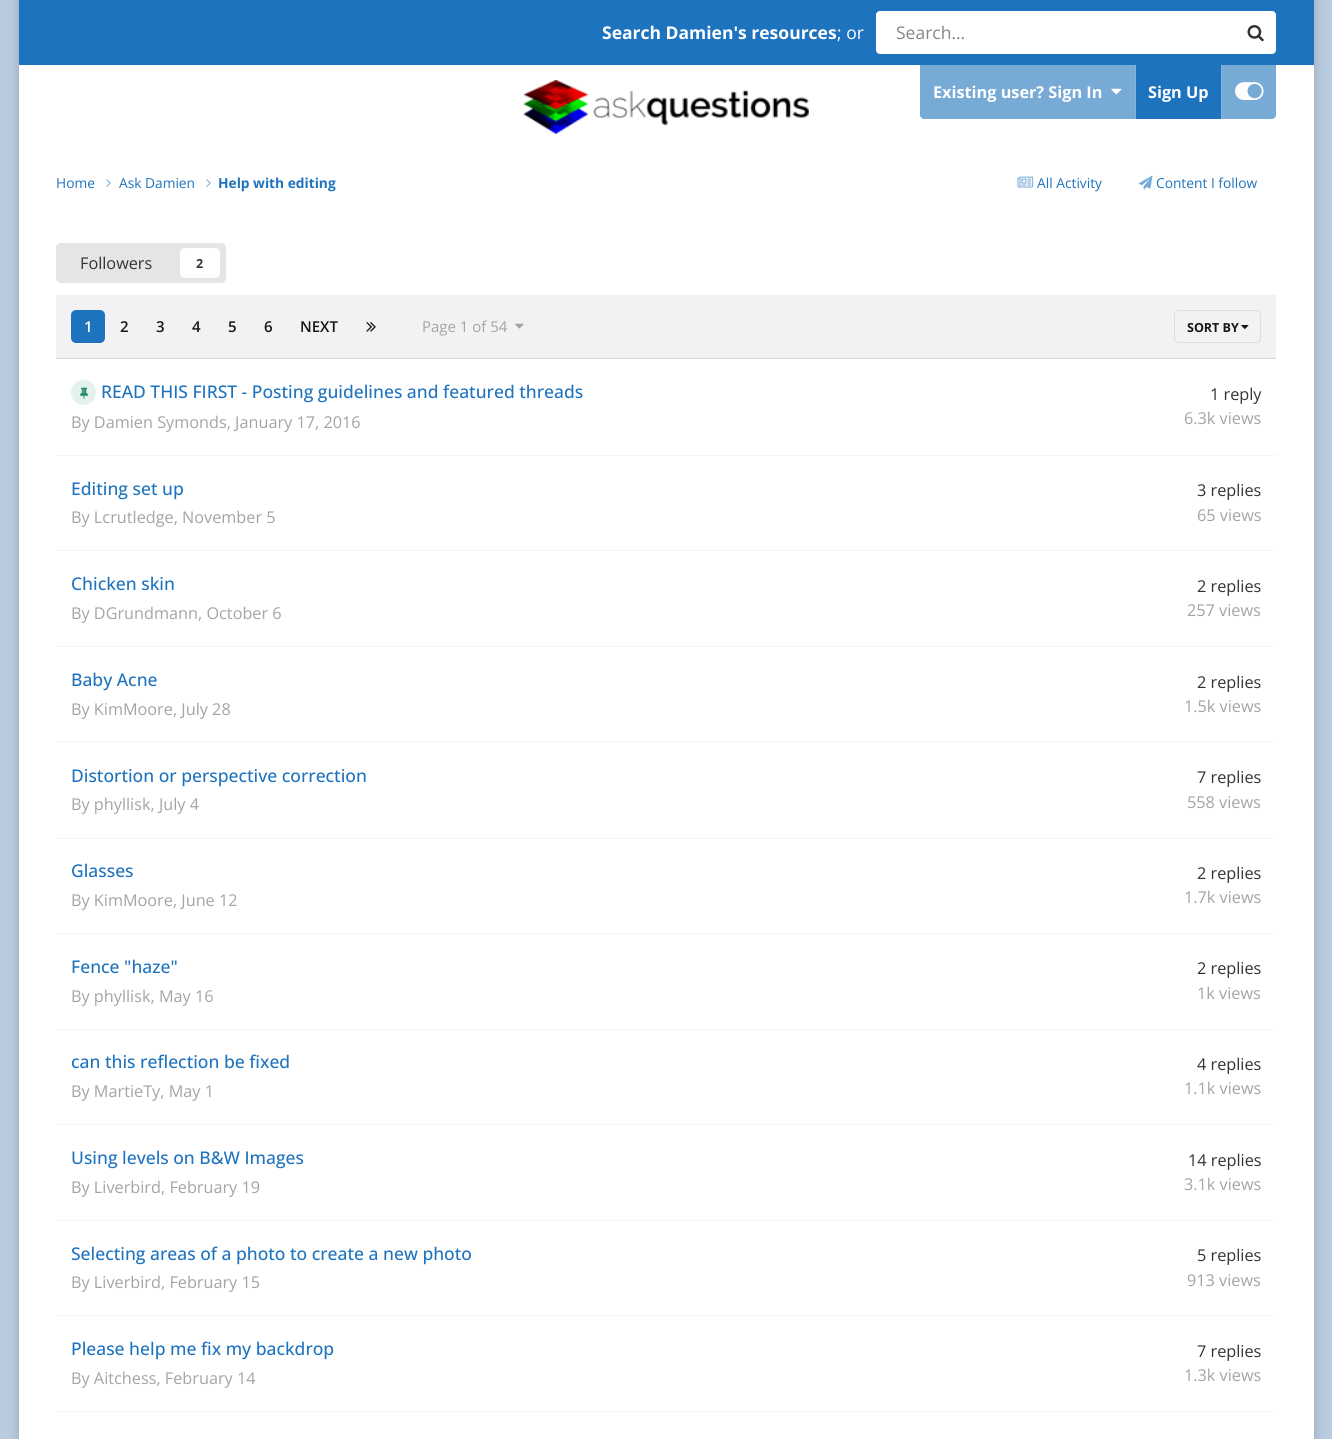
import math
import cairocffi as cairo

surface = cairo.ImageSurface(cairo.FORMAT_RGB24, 1332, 1439)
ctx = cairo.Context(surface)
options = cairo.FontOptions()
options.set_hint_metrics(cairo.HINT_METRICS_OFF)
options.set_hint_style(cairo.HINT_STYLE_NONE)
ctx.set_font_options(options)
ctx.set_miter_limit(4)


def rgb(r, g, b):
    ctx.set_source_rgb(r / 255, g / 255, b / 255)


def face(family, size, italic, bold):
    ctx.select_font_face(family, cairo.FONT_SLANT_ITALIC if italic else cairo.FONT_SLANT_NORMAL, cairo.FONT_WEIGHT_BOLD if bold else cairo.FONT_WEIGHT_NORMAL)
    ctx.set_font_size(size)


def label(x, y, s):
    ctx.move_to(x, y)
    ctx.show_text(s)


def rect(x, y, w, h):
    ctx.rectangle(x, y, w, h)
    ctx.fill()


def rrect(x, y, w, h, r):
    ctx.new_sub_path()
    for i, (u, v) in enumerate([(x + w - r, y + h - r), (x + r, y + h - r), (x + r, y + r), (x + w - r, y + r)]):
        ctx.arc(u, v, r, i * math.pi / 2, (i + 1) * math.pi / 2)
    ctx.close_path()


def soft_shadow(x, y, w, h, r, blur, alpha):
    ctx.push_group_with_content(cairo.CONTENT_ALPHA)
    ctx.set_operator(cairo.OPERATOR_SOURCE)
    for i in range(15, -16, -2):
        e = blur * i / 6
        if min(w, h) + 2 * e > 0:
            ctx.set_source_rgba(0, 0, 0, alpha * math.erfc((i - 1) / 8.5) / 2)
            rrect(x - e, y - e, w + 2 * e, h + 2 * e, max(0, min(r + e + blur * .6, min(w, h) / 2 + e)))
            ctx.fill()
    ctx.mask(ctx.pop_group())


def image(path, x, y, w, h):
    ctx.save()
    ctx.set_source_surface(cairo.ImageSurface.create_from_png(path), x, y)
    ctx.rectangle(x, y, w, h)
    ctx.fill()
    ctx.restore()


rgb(186, 204, 224)
ctx.paint()
rgb(0, 0, 0)
soft_shadow(19, 0, 1295, 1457, 0, 6, 0.2)
rgb(255, 255, 255)
rect(19, 65, 1295, 1374)
rgb(30, 115, 190)
rect(19, 0, 1295, 65)
face('Open Sans', 17.5, 0, 1)
rgb(255, 255, 255)
label(602, 39, 'Search Damien\'s resources')
face('Open Sans', 17.5, 0, 0)
label(837, 39, '; or')
rrect(876, 11, 400, 43, 4)
ctx.fill()
rgb(133, 133, 133)
label(896, 39, 'Search...')
image('image0.png', 1247, 25, 17, 17)
image('image1.png', 523, 80, 286, 54)
rgb(119, 170, 213)
ctx.new_path()
ctx.move_to(920, 65)
ctx.line_to(1276, 65)
ctx.line_to(1276, 115)
ctx.curve_to(1276, 117, 1274, 119, 1272, 119)
ctx.line_to(924, 119)
ctx.curve_to(922, 119, 920, 117, 920, 115)
ctx.close_path()
ctx.fill()
face('Open Sans', 16.25, 0, 1)
rgb(255, 255, 255)
label(933, 98, 'Existing user? Sign In')
image('image2.png', 1111, 88, 11, 7)
rgb(133, 179, 217)
rect(1135, 65, 1, 54)
rgb(30, 115, 190)
rect(1136, 65, 85, 54)
rgb(255, 255, 255)
label(1148, 98, 'Sign Up')
rgb(133, 179, 217)
rect(1221, 65, 1, 54)
image('image3.png', 1235, 82, 29, 18)
face('Open Sans', 13.75, 0, 0)
rgb(30, 115, 190)
label(56, 188, 'Home')
image('image4.png', 106, 179, 5, 8)
label(119, 188, 'Ask Damien')
image('image4.png', 206, 179, 5, 8)
face('Open Sans', 13.75, 0, 1)
label(218, 188, 'Help with editing')
image('image5.png', 1017, 176, 17, 12)
face('Open Sans', 13.75, 0, 0)
label(1037, 188, 'All Activity')
image('image6.png', 1138, 175, 15, 15)
label(1156, 188, 'Content I follow')
rgb(229, 229, 229)
rrect(56, 243, 170, 40, 5)
ctx.fill()
face('Open Sans', 16.25, 0, 0)
rgb(51, 51, 51)
label(80, 269, 'Followers')
rgb(255, 255, 255)
rrect(180, 248, 40, 30, 5)
ctx.fill()
face('Open Sans', 12.5, 0, 1)
rgb(51, 51, 51)
label(196, 268, '2')
rgb(242, 242, 242)
rect(56, 295, 1220, 63)
rgb(213, 213, 213)
rect(56, 358, 1220, 1)
rgb(30, 115, 190)
rrect(71, 310, 34, 33, 5)
ctx.fill()
face('Open Sans SemiBold', 15, 0, 0)
rgb(255, 255, 255)
label(84, 332, '1')
rgb(23, 23, 23)
label(120, 332, '2')
label(156, 332, '3')
label(192, 332, '4')
label(228, 332, '5')
label(264, 332, '6')
label(300, 332, 'NEXT')
image('image7.png', 366, 322, 10, 10)
face('Open Sans', 15, 0, 0)
rgb(164, 164, 164)
label(422, 332, 'Page 1 of 54')
image('image8.png', 515, 323, 9, 6)
image('image9.png', 1241, 325, 8, 4)
rrect(1174.5, 310.5, 86, 32, 4.5)
rgb(220, 220, 220)
ctx.set_line_width(1)
ctx.stroke()
face('Open Sans', 12.5, 0, 1)
rgb(23, 23, 23)
label(1187, 332, 'SORT BY')
rgb(246, 246, 246)
rect(56, 455, 1220, 1)
rgb(227, 243, 236)
ctx.new_path()
ctx.arc(83.5, 392.5, 12.5, 0, 2 * math.pi)
ctx.fill()
image('image10.png', 80, 387, 8, 13)
face('Open Sans Medium', 17.5, 0, 0)
rgb(30, 115, 190)
label(101, 398, 'READ THIS FIRST - Posting guidelines and featured threads')
face('Open Sans', 16.25, 0, 0)
rgb(164, 164, 164)
label(71, 428, 'By Damien Symonds, January 17, 2016')
rgb(51, 51, 51)
label(1210, 400, '1 reply')
rgb(164, 164, 164)
label(1184, 424, '6.3k views')
rgb(246, 246, 246)
rect(56, 550, 1220, 1)
face('Open Sans Medium', 17.5, 0, 0)
rgb(30, 115, 190)
label(71, 495, 'Editing set up')
face('Open Sans', 16.25, 0, 0)
rgb(164, 164, 164)
label(71, 523, 'By Lcrutledge, November 5')
rgb(51, 51, 51)
label(1197, 496, '3 replies')
rgb(164, 164, 164)
label(1197, 521, '65 views')
rgb(246, 246, 246)
rect(56, 646, 1220, 1)
face('Open Sans Medium', 17.5, 0, 0)
rgb(30, 115, 190)
label(71, 590, 'Chicken skin')
face('Open Sans', 16.25, 0, 0)
rgb(164, 164, 164)
label(71, 619, 'By DGrundmann, October 6')
rgb(51, 51, 51)
label(1197, 592, '2 replies')
rgb(164, 164, 164)
label(1187, 616, '257 views')
rgb(246, 246, 246)
rect(56, 741, 1220, 1)
face('Open Sans Medium', 17.5, 0, 0)
rgb(30, 115, 190)
label(71, 686, 'Baby Acne')
face('Open Sans', 16.25, 0, 0)
rgb(164, 164, 164)
label(71, 715, 'By KimMoore, July 28')
rgb(51, 51, 51)
label(1197, 688, '2 replies')
rgb(164, 164, 164)
label(1184, 712, '1.5k views')
rgb(246, 246, 246)
rect(56, 838, 1220, 1)
face('Open Sans Medium', 17.5, 0, 0)
rgb(30, 115, 190)
label(71, 782, 'Distortion or perspective correction')
face('Open Sans', 16.25, 0, 0)
rgb(164, 164, 164)
label(71, 810, 'By phyllisk, July 4')
rgb(51, 51, 51)
label(1197, 783, '7 replies')
rgb(164, 164, 164)
label(1187, 808, '558 views')
rgb(246, 246, 246)
rect(56, 933, 1220, 1)
face('Open Sans Medium', 17.5, 0, 0)
rgb(30, 115, 190)
label(71, 877, 'Glasses')
face('Open Sans', 16.25, 0, 0)
rgb(164, 164, 164)
label(71, 906, 'By KimMoore, June 12')
rgb(51, 51, 51)
label(1197, 879, '2 replies')
rgb(164, 164, 164)
label(1184, 903, '1.7k views')
rgb(246, 246, 246)
rect(56, 1029, 1220, 1)
face('Open Sans Medium', 17.5, 0, 0)
rgb(30, 115, 190)
label(71, 973, 'Fence "haze"')
face('Open Sans', 16.25, 0, 0)
rgb(164, 164, 164)
label(71, 1002, 'By phyllisk, May 16')
rgb(51, 51, 51)
label(1197, 974, '2 replies')
rgb(164, 164, 164)
label(1197, 999, '1k views')
rgb(246, 246, 246)
rect(56, 1124, 1220, 1)
face('Open Sans Medium', 17.5, 0, 0)
rgb(30, 115, 190)
label(71, 1068, 'can this reflection be fixed')
face('Open Sans', 16.25, 0, 0)
rgb(164, 164, 164)
label(71, 1097, 'By MartieTy, May 1')
rgb(51, 51, 51)
label(1197, 1070, '4 replies')
rgb(164, 164, 164)
label(1184, 1094, '1.1k views')
rgb(246, 246, 246)
rect(56, 1220, 1220, 1)
face('Open Sans Medium', 17.5, 0, 0)
rgb(30, 115, 190)
label(71, 1164, 'Using levels on B&W Images')
face('Open Sans', 16.25, 0, 0)
rgb(164, 164, 164)
label(71, 1193, 'By Liverbird, February 19')
rgb(51, 51, 51)
label(1188, 1166, '14 replies')
rgb(164, 164, 164)
label(1184, 1190, '3.1k views')
rgb(246, 246, 246)
rect(56, 1315, 1220, 1)
face('Open Sans Medium', 17.5, 0, 0)
rgb(30, 115, 190)
label(71, 1260, 'Selecting areas of a photo to create a new photo')
face('Open Sans', 16.25, 0, 0)
rgb(164, 164, 164)
label(71, 1288, 'By Liverbird, February 15')
rgb(51, 51, 51)
label(1197, 1261, '5 replies')
rgb(164, 164, 164)
label(1187, 1286, '913 views')
rgb(246, 246, 246)
rect(56, 1411, 1220, 1)
face('Open Sans Medium', 17.5, 0, 0)
rgb(30, 115, 190)
label(71, 1355, 'Please help me fix my backdrop')
face('Open Sans', 16.25, 0, 0)
rgb(164, 164, 164)
label(71, 1384, 'By Aitchess, February 14')
rgb(51, 51, 51)
label(1197, 1357, '7 replies')
rgb(164, 164, 164)
label(1184, 1381, '1.3k views')
surface.write_to_png('render.png')
